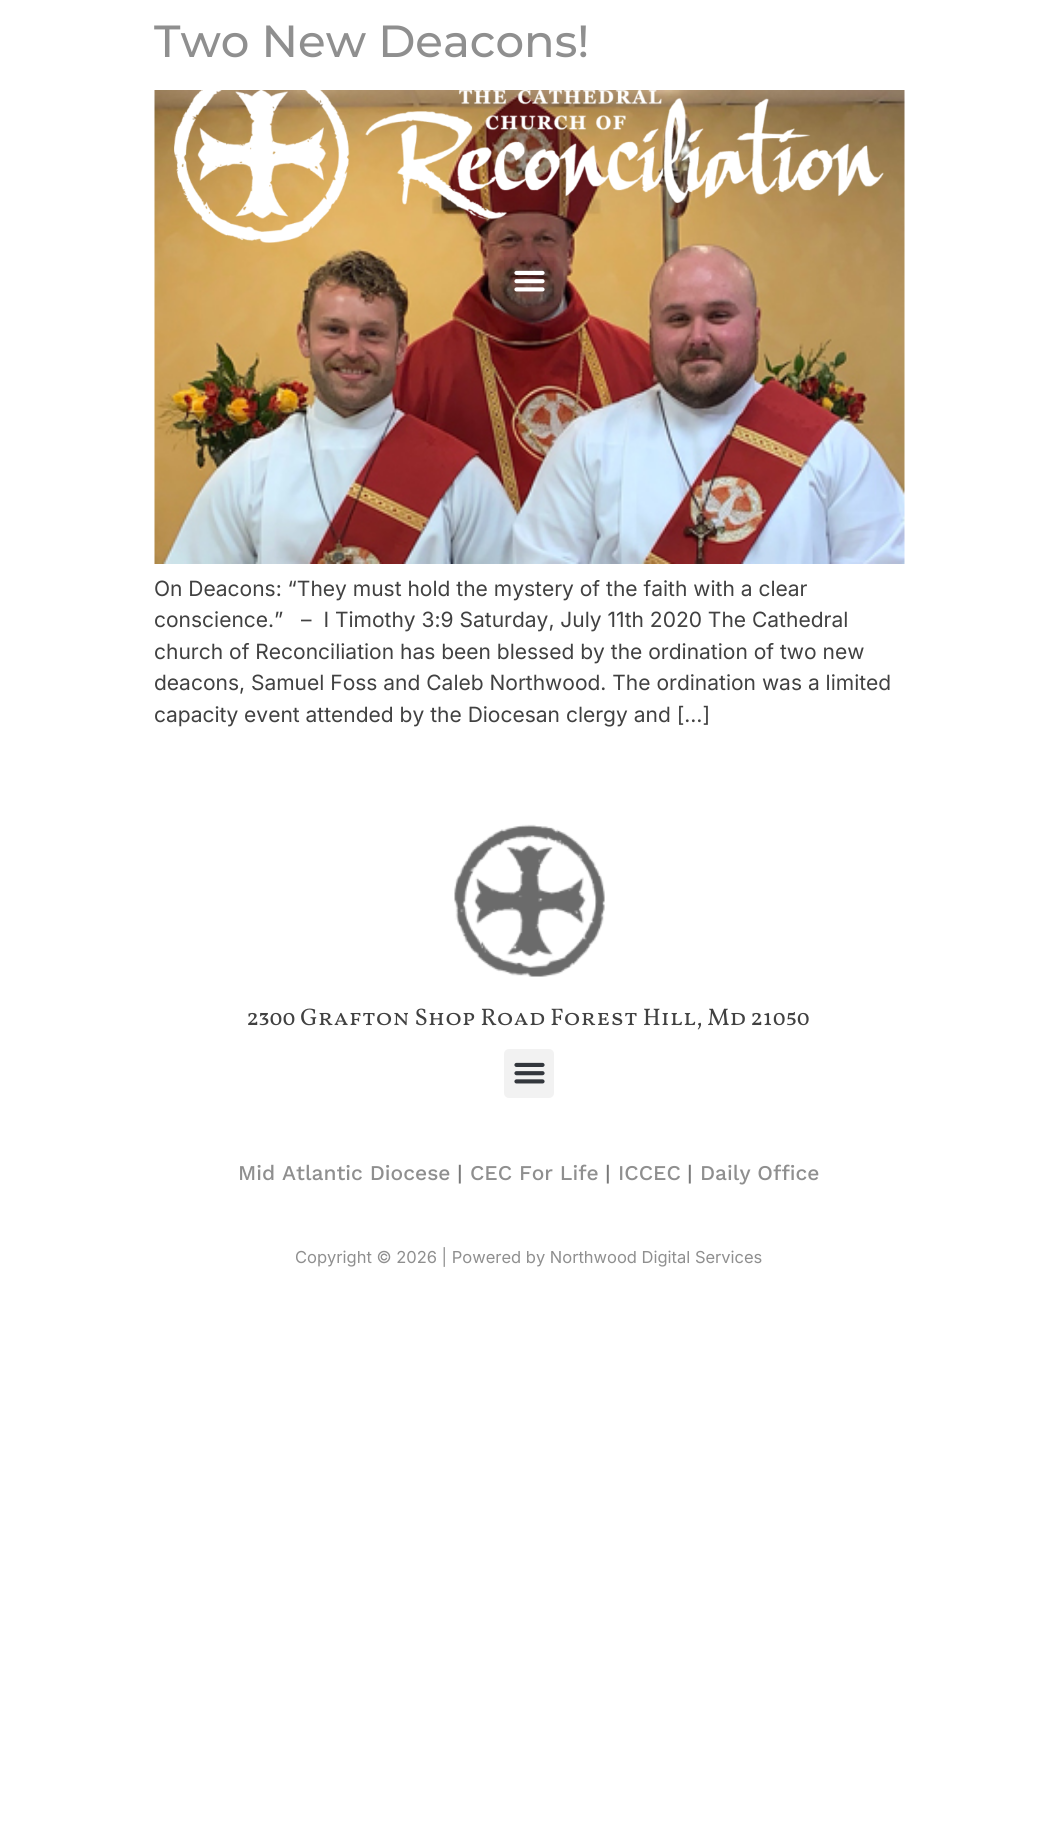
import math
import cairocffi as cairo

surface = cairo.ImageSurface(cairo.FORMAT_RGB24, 1057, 1836)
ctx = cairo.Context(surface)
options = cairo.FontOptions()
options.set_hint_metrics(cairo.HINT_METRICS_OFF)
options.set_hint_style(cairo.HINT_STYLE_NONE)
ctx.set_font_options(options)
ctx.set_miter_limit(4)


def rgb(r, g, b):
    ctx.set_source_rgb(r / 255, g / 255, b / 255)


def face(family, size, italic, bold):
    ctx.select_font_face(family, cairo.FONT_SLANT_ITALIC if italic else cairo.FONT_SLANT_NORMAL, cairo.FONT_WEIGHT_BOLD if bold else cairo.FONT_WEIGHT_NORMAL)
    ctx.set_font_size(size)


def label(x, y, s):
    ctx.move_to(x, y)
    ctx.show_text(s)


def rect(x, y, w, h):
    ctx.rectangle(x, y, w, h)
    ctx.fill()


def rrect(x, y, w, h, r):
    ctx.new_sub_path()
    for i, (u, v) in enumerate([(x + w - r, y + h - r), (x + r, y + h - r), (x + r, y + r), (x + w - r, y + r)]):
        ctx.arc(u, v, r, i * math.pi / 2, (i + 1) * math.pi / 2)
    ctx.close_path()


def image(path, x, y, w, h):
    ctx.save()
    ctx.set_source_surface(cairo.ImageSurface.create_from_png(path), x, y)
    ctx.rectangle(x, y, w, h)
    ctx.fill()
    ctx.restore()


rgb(255, 255, 255)
ctx.paint()
face('Montserrat Medium', 45, 0, 0)
rgb(143, 143, 143)
label(154, 57, 'Two New Deacons!')
image('image0.png', 154, 90, 751, 474)
face('Inter', 21, 0, 0)
rgb(65, 65, 65)
label(154, 596, 'On Deacons: “They must hold the mystery of the faith with a clear')
label(154, 627, 'conscience.”   –  I Timothy 3:9 Saturday, July 11th 2020 The Cathedral')
label(154, 659, 'church of Reconciliation has been blessed by the ordination of two new')
label(154, 690, 'deacons, Samuel Foss and Caleb Northwood. The ordination was a limited')
label(154, 722, 'capacity event attended by the Diocesan clergy and […]')
image('image1.png', 174, 90, 710, 153)
ctx.set_source_rgba(0, 0, 0, 0.05)
rect(504, 257, 50, 49)
image('image2.png', 514, 270, 31, 22)
image('image3.png', 454, 824, 151, 153)
face('Vollkorn SC', 24, 0, 0)
rgb(65, 65, 65)
label(247, 1025, '2300 Grafton Shop Road Forest Hill, Md 21050')
rgb(242, 242, 242)
rrect(504, 1049, 50, 49, 5)
ctx.fill()
image('image4.png', 514, 1062, 31, 22)
face('Work Sans Medium', 21, 0, 0)
rgb(143, 143, 143)
label(238, 1180, 'Mid Atlantic Diocese')
rgb(120, 120, 120)
label(457, 1180, '|')
rgb(143, 143, 143)
label(470, 1180, 'CEC For Life')
rgb(120, 120, 120)
label(605, 1180, '|')
rgb(143, 143, 143)
label(618, 1180, 'ICCEC')
rgb(120, 120, 120)
label(687, 1180, '|')
rgb(143, 143, 143)
label(700, 1180, 'Daily Office')
face('Inter', 16.5, 0, 0)
label(295, 1263, 'Copyright © 2026 | Powered by Northwood Digital Services')
surface.write_to_png('render.png')
